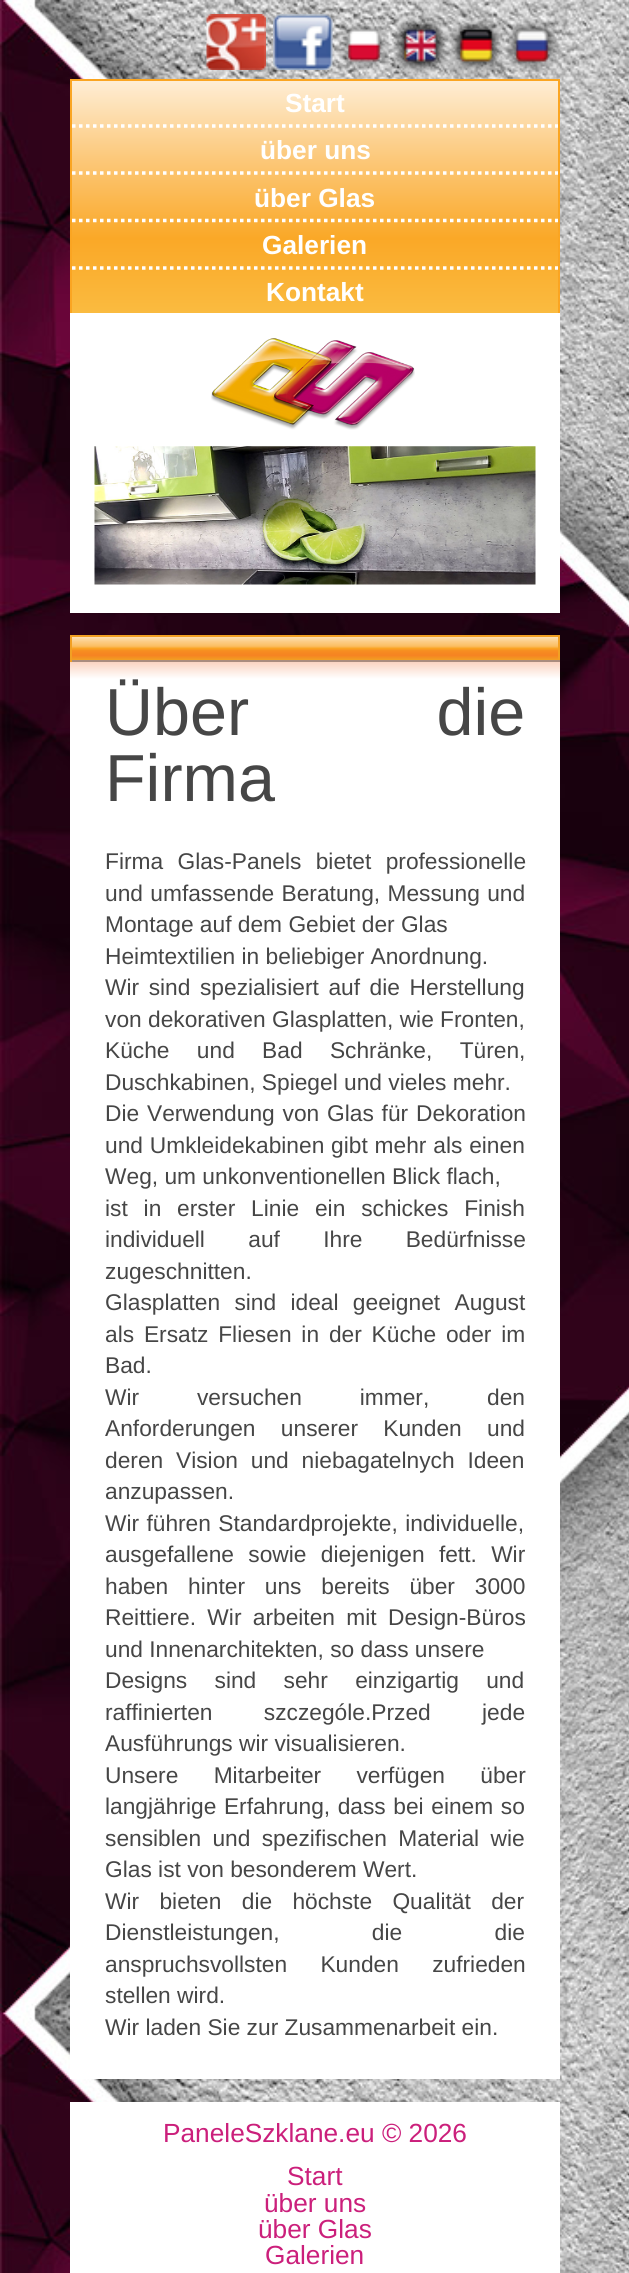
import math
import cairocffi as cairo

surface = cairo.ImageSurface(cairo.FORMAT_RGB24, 629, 2273)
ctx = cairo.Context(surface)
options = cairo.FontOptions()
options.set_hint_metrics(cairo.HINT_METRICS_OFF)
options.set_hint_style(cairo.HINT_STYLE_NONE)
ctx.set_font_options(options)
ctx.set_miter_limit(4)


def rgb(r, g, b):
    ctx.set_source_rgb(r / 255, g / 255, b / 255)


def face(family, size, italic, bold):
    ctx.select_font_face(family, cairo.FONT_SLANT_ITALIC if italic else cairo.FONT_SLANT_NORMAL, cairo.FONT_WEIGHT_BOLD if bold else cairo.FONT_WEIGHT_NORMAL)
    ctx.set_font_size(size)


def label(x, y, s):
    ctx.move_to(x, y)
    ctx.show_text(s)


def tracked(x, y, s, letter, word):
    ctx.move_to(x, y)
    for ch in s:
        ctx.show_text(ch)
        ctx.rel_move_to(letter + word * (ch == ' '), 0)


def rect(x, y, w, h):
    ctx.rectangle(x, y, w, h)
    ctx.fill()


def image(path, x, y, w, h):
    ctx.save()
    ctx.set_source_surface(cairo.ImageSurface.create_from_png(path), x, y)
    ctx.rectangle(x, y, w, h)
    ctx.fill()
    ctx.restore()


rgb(255, 255, 255)
ctx.paint()
image('image0.png', 0, 0, 629, 2273)
image('image1.png', 206, 14, 60, 56)
image('image2.png', 273, 14, 60, 56)
image('image3.png', 339, 20, 50, 50)
image('image4.png', 392, 18, 56, 55)
image('image5.png', 448, 18, 56, 54)
image('image6.png', 506, 19, 53, 53)
gradient = cairo.LinearGradient(315, 80, 315, 313)
gradient.add_color_stop_rgba(0, 0.996, 0.933, 0.839, 1)
gradient.add_color_stop_rgba(0.34, 0.988, 0.784, 0.475, 1)
gradient.add_color_stop_rgba(0.68, 0.98, 0.659, 0.153, 1)
gradient.add_color_stop_rgba(1, 0.98, 0.733, 0.251, 1)
ctx.set_source(gradient)
rect(72, 81, 486, 232)
rgb(250, 165, 34)
rect(70, 79, 490, 2)
rect(558, 79, 2, 234)
rect(70, 79, 2, 234)
ctx.new_path()
ctx.move_to(72, 126)
ctx.line_to(558, 126)
rgb(255, 255, 255)
ctx.set_line_width(3.5)
ctx.set_dash([3.5, 3.5])
ctx.stroke()
face('Liberation Sans', 26.25, 0, 1)
label(285, 112, 'Start')
ctx.new_path()
ctx.move_to(72, 173)
ctx.line_to(558, 173)
ctx.stroke()
label(260, 159, 'über uns')
ctx.new_path()
ctx.move_to(72, 220.5)
ctx.line_to(558, 220.5)
ctx.stroke()
label(254, 207, 'über Glas')
ctx.new_path()
ctx.move_to(72, 268)
ctx.line_to(558, 268)
ctx.stroke()
label(262, 254, 'Galerien')
label(266, 301, 'Kontakt')
rect(70, 313, 490, 300)
image('image7.png', 211, 338, 204, 92)
image('image8.png', 94, 446, 442, 139)
gradient = cairo.LinearGradient(315, 637, 315, 660)
gradient.add_color_stop_rgba(0, 0.992, 0.878, 0.706, 1)
gradient.add_color_stop_rgba(0.2, 0.988, 0.804, 0.525, 1)
gradient.add_color_stop_rgba(0.4, 0.984, 0.745, 0.38, 1)
gradient.add_color_stop_rgba(0.5, 0.98, 0.639, 0.141, 1)
gradient.add_color_stop_rgba(0.6, 0.969, 0.553, 0.129, 1)
gradient.add_color_stop_rgba(0.8, 0.965, 0.514, 0.133, 1)
gradient.add_color_stop_rgba(1, 0.949, 0.627, 0.137, 1)
ctx.set_source(gradient)
rect(72, 637, 486, 23)
rgb(242, 160, 35)
rect(70, 635, 490, 2)
rect(558, 635, 2, 27)
rgb(170, 140, 126)
rect(70, 660, 490, 2)
rgb(242, 160, 35)
rect(70, 635, 2, 27)
rgb(255, 255, 255)
rect(70, 679, 490, 1400)
gradient = cairo.LinearGradient(315, 662, 315, 679)
gradient.add_color_stop_rgba(0, 0.984, 0.831, 0.757, 1)
gradient.add_color_stop_rgba(1, 1, 1, 1, 1)
ctx.set_source(gradient)
rect(70, 662, 490, 17)
face('Liberation Sans', 66.5, 0, 0)
rgb(70, 70, 70)
tracked(105, 735, 'Über die', 0, 169)
label(105, 801, 'Firma')
face('Liberation Sans', 22.75, 0, 0)
tracked(105, 869, 'Firma Glas-Panels bietet professionelle', 0, 8)
tracked(105, 901, 'und umfassende Beratung, Messung und', 0, 1)
label(105, 932, 'Montage auf dem Gebiet der Glas')
label(105, 964, 'Heimtextilien in beliebiger Anordnung.')
tracked(105, 995, 'Wir sind spezialisiert auf die Herstellung', 0, 3.25)
label(105, 1027, 'von dekorativen Glasplatten, wie Fronten,')
tracked(105, 1058, 'Küche und Bad Schränke, Türen,', 0, 21)
label(105, 1090, 'Duschkabinen, Spiegel und vieles mehr.')
tracked(105, 1121, 'Die Verwendung von Glas für Dekoration', 0, 1.5)
tracked(105, 1153, 'und Umkleidekabinen gibt mehr als einen', 0, 0.5)
label(105, 1184, 'Weg, um unkonventionellen Blick flach,')
tracked(105, 1216, 'ist in erster Linie ein schickes Finish', 0, 9.5)
tracked(105, 1247, 'individuell auf Ihre Bedürfnisse', 0, 37)
label(105, 1279, 'zugeschnitten.')
tracked(105, 1310, 'Glasplatten sind ideal geeignet August', 0, 8)
tracked(105, 1342, 'als Ersatz Fliesen in der Küche oder im', 0, 3.5)
label(105, 1373, 'Bad.')
tracked(105, 1405, 'Wir versuchen immer, den', 0, 51.5)
tracked(105, 1436, 'Anforderungen unserer Kunden und', 0, 19)
tracked(105, 1468, 'deren Vision und niebagatelnych Ideen', 0, 6.5)
label(105, 1499, 'anzupassen.')
tracked(105, 1531, 'Wir führen Standardprojekte, individuelle,', 0, 1)
tracked(105, 1562, 'ausgefallene sowie diejenigen fett. Wir', 0, 8)
tracked(105, 1594, 'haben hinter uns bereits über 3000', 0, 13.5)
tracked(105, 1625, 'Reittiere. Wir arbeiten mit Design-Büros', 0, 5)
label(105, 1657, 'und Innenarchitekten, so dass unsere')
tracked(105, 1688, 'Designs sind sehr einzigartig und', 0, 21)
tracked(105, 1720, 'raffinierten szczególe.Przed jede', 0, 45)
label(105, 1751, 'Ausführungs wir visualisieren.')
tracked(105, 1783, 'Unsere Mitarbeiter verfügen über', 0, 29)
tracked(105, 1814, 'langjährige Erfahrung, dass bei einem so', 0, 1.25)
tracked(105, 1846, 'sensiblen und spezifischen Material wie', 0, 5)
label(105, 1877, 'Glas ist von besonderem Wert.')
tracked(105, 1909, 'Wir bieten die höchste Qualität der', 0, 14)
tracked(105, 1940, 'Dienstleistungen, die die', 0, 86)
tracked(105, 1972, 'anspruchsvollsten Kunden zufrieden', 0, 27)
label(105, 2003, 'stellen wird.')
label(105, 2035, 'Wir laden Sie zur Zusammenarbeit ein.')
rgb(255, 255, 255)
rect(70, 2102, 490, 171)
face('Liberation Sans', 26.25, 0, 0)
rgb(203, 31, 123)
label(163, 2142, 'PaneleSzklane.eu © 2026')
label(287, 2185, 'Start')
label(264, 2212, 'über uns')
label(258, 2238, 'über Glas')
label(265, 2264, 'Galerien')
surface.write_to_png('render.png')
